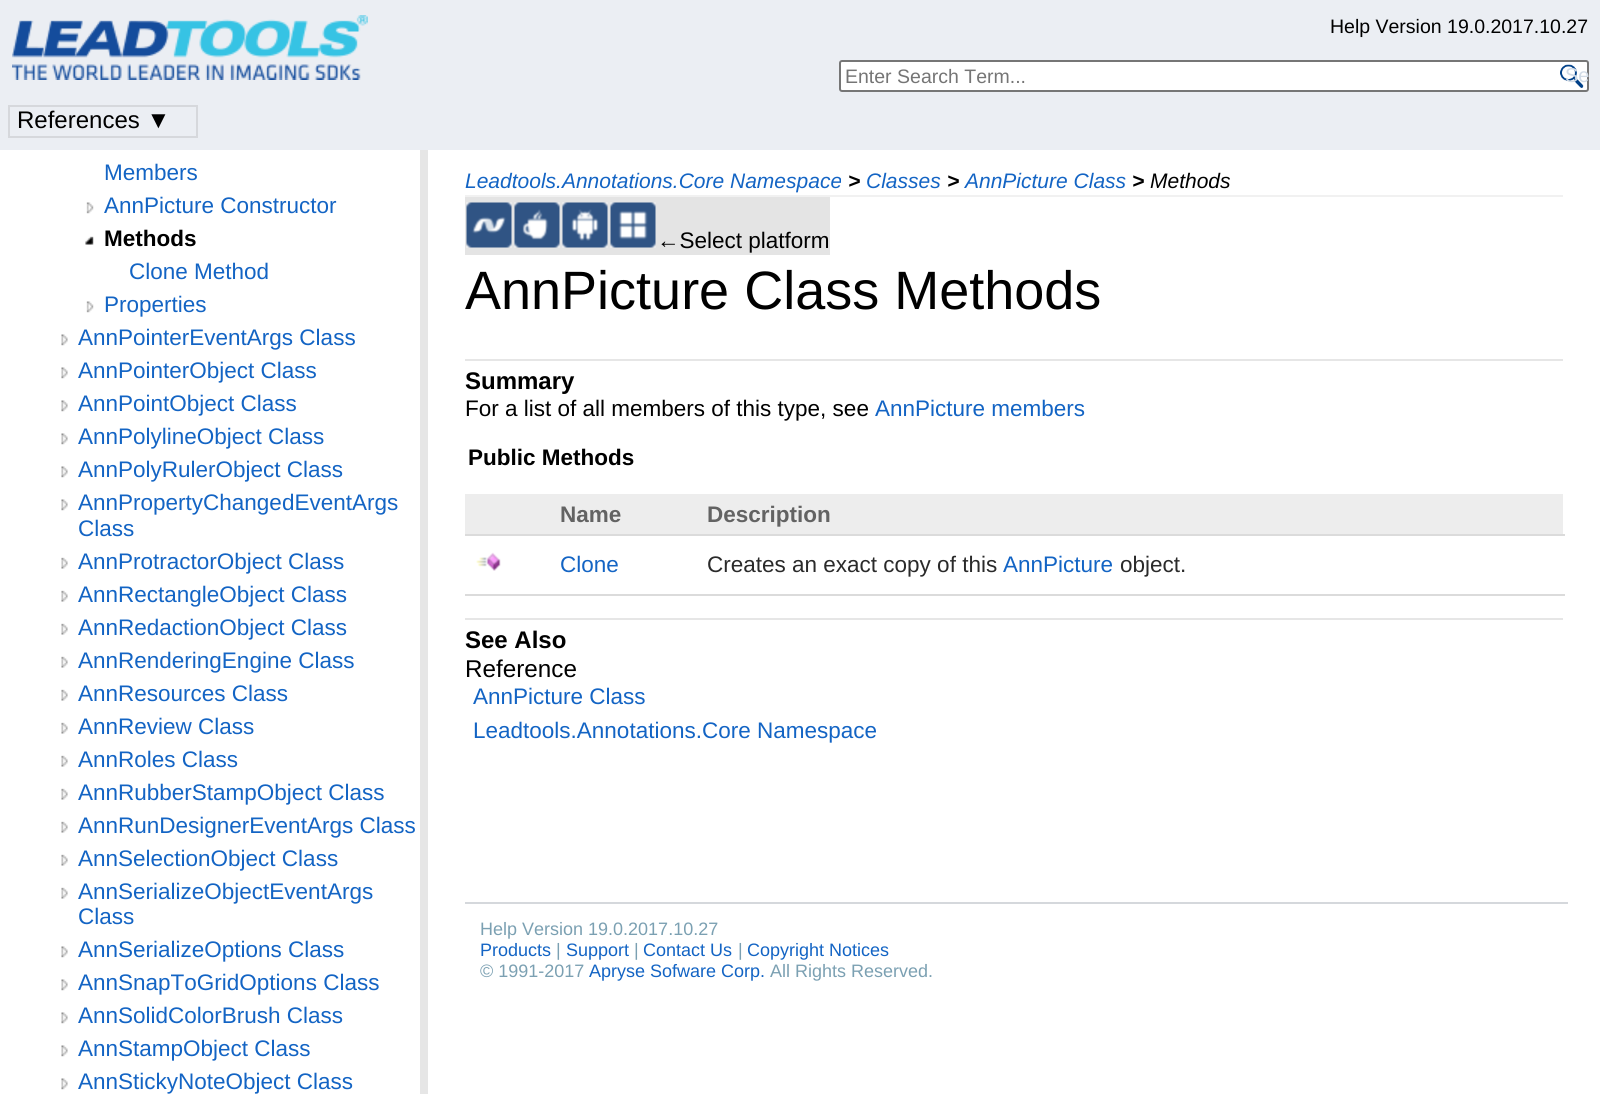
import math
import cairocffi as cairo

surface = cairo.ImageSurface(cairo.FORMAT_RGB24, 1600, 1094)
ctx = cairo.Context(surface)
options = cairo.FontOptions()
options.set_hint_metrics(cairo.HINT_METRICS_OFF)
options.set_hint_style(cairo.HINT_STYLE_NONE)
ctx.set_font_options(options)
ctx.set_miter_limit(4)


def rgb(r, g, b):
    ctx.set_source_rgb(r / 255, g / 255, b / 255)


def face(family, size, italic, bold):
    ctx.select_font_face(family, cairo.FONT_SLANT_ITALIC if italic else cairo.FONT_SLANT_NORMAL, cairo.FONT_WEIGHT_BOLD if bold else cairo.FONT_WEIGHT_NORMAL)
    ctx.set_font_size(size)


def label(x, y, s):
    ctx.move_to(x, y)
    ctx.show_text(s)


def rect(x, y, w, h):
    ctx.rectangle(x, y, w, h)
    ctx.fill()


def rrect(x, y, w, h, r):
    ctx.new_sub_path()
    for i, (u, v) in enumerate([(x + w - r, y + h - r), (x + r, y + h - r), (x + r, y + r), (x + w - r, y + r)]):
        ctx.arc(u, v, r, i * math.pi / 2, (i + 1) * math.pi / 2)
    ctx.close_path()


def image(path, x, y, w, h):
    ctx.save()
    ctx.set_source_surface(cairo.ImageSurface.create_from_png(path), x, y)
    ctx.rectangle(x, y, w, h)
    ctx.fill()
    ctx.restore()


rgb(255, 255, 255)
ctx.paint()
rgb(235, 238, 243)
rect(0, 0, 1600, 150)
image('image0.png', 12, 15, 356, 65)
face('Liberation Sans', 19.5, 0, 0)
rgb(0, 0, 0)
label(1330, 33, 'Help Version 19.0.2017.10.27')
rgb(255, 255, 255)
rrect(840, 61, 748, 30, 2)
ctx.fill_preserve()
rgb(118, 118, 118)
ctx.stroke()
rgb(117, 117, 117)
label(845, 83, 'Enter Search Term...')
image('image1.png', 1560, 64, 24, 24)
face('Liberation Sans', 20, 0, 0)
rgb(209, 219, 230)
label(1565, 82, 'Se')
ctx.rectangle(9, 106, 188, 31)
rgb(214, 216, 220)
ctx.stroke()
face('Liberation Sans', 24, 0, 0)
rgb(0, 0, 0)
label(17, 128, 'References ▼')
rgb(230, 230, 230)
rect(420, 150, 8, 944)
face('Liberation Sans', 22.5, 0, 0)
rgb(19, 100, 196)
label(104, 180, 'Members')
image('image2.png', 86, 202, 8, 12)
label(104, 213, 'AnnPicture Constructor')
image('image3.png', 85, 236, 9, 9)
face('Liberation Sans', 22.5, 0, 1)
rgb(0, 0, 0)
label(104, 246, 'Methods')
face('Liberation Sans', 22.5, 0, 0)
rgb(19, 100, 196)
label(129, 279, 'Clone Method')
image('image2.png', 86, 301, 8, 12)
label(104, 312, 'Properties')
image('image4.png', 61, 334, 7, 12)
label(78, 345, 'AnnPointerEventArgs Class')
image('image4.png', 61, 367, 7, 12)
label(78, 378, 'AnnPointerObject Class')
image('image4.png', 61, 400, 7, 12)
label(78, 411, 'AnnPointObject Class')
image('image4.png', 61, 433, 7, 12)
label(78, 444, 'AnnPolylineObject Class')
image('image4.png', 61, 466, 7, 12)
label(78, 477, 'AnnPolyRulerObject Class')
image('image4.png', 61, 499, 7, 12)
label(78, 510, 'AnnPropertyChangedEventArgs')
label(78, 536, 'Class')
image('image5.png', 61, 557, 7, 12)
label(78, 569, 'AnnProtractorObject Class')
image('image5.png', 61, 590, 7, 12)
label(78, 602, 'AnnRectangleObject Class')
image('image5.png', 61, 623, 7, 12)
label(78, 635, 'AnnRedactionObject Class')
image('image5.png', 61, 656, 7, 12)
label(78, 668, 'AnnRenderingEngine Class')
image('image5.png', 61, 689, 7, 12)
label(78, 701, 'AnnResources Class')
image('image5.png', 61, 722, 7, 12)
label(78, 734, 'AnnReview Class')
image('image5.png', 61, 755, 7, 12)
label(78, 767, 'AnnRoles Class')
image('image5.png', 61, 788, 7, 12)
label(78, 800, 'AnnRubberStampObject Class')
image('image5.png', 61, 821, 7, 12)
label(78, 833, 'AnnRunDesignerEventArgs Class')
image('image5.png', 61, 854, 7, 12)
label(78, 866, 'AnnSelectionObject Class')
image('image5.png', 61, 887, 7, 12)
label(78, 899, 'AnnSerializeObjectEventArgs')
label(78, 924, 'Class')
image('image4.png', 61, 946, 7, 12)
label(78, 957, 'AnnSerializeOptions Class')
image('image4.png', 61, 979, 7, 12)
label(78, 990, 'AnnSnapToGridOptions Class')
image('image4.png', 61, 1012, 7, 12)
label(78, 1023, 'AnnSolidColorBrush Class')
image('image4.png', 61, 1045, 7, 12)
label(78, 1056, 'AnnStampObject Class')
image('image4.png', 61, 1078, 7, 12)
label(78, 1089, 'AnnStickyNoteObject Class')
rgb(241, 241, 241)
rect(465, 195, 1098, 2)
face('Liberation Sans', 21, 1, 0)
rgb(19, 100, 196)
label(465, 188, 'Leadtools.Annotations.Core Namespace')
face('Liberation Sans', 21, 1, 1)
rgb(0, 0, 0)
label(848, 188, '>')
face('Liberation Sans', 21, 1, 0)
rgb(19, 100, 196)
label(866, 188, 'Classes')
face('Liberation Sans', 21, 1, 1)
rgb(0, 0, 0)
label(947, 188, '>')
face('Liberation Sans', 21, 1, 0)
rgb(19, 100, 196)
label(965, 188, 'AnnPicture Class')
face('Liberation Sans', 21, 1, 1)
rgb(0, 0, 0)
label(1132, 188, '>')
face('Liberation Sans', 21, 1, 0)
label(1150, 188, 'Methods')
rgb(228, 228, 228)
rect(465, 197, 365, 58)
image('image6.png', 466, 202, 46, 46)
image('image7.png', 514, 202, 46, 46)
image('image8.png', 562, 202, 46, 46)
image('image9.png', 610, 202, 46, 46)
face('Liberation Sans', 22.5, 0, 0)
rgb(0, 0, 0)
label(657, 248, '←Select platform')
face('Liberation Sans', 54, 0, 0)
label(465, 309, 'AnnPicture Class Methods')
rgb(230, 230, 230)
rect(465, 359, 1098, 2)
face('Liberation Sans', 24, 0, 1)
rgb(0, 0, 0)
label(465, 389, 'Summary')
face('Liberation Sans', 22.5, 0, 0)
label(465, 416, 'For a list of all members of this type, see')
rgb(19, 100, 196)
label(875, 416, 'AnnPicture members')
face('Liberation Sans', 22.5, 0, 1)
rgb(0, 0, 0)
label(468, 465, 'Public Methods')
rgb(237, 237, 237)
rect(465, 494, 1098, 40)
rgb(99, 99, 99)
label(560, 522, 'Name')
rgb(219, 219, 219)
rect(465, 534, 1100, 2)
rgb(99, 99, 99)
label(707, 522, 'Description')
image('image10.png', 476, 552, 25, 19)
face('Liberation Sans', 22.5, 0, 0)
rgb(19, 100, 196)
label(560, 572, 'Clone')
rgb(219, 219, 219)
rect(465, 594, 1100, 2)
rgb(42, 42, 42)
label(707, 572, 'Creates an exact copy of this')
rgb(19, 100, 196)
label(1003, 572, 'AnnPicture')
rgb(42, 42, 42)
label(1120, 572, 'object.')
rgb(230, 230, 230)
rect(465, 618, 1098, 2)
face('Liberation Sans', 24, 0, 1)
rgb(0, 0, 0)
label(465, 648, 'See Also')
face('Liberation Sans', 24.25, 0, 0)
label(465, 677, 'Reference')
face('Liberation Sans', 22.5, 0, 0)
rgb(19, 100, 196)
label(473, 704, 'AnnPicture Class')
label(473, 738, 'Leadtools.Annotations.Core Namespace')
rgb(213, 216, 220)
rect(465, 902, 1103, 2)
face('Liberation Sans', 18, 0, 0)
rgb(123, 160, 178)
label(480, 935, 'Help Version 19.0.2017.10.27')
rgb(19, 100, 196)
label(480, 956, 'Products')
rgb(123, 160, 178)
label(556, 956, '|')
rgb(19, 100, 196)
label(566, 956, 'Support')
rgb(123, 160, 178)
label(634, 956, '|')
rgb(19, 100, 196)
label(643, 956, 'Contact Us')
rgb(123, 160, 178)
label(738, 956, '|')
rgb(19, 100, 196)
label(747, 956, 'Copyright Notices')
rgb(123, 160, 178)
label(480, 977, '© 1991-2017')
rgb(19, 100, 196)
label(589, 977, 'Apryse Sofware Corp.')
rgb(123, 160, 178)
label(770, 977, 'All Rights Reserved.')
surface.write_to_png('render.png')
